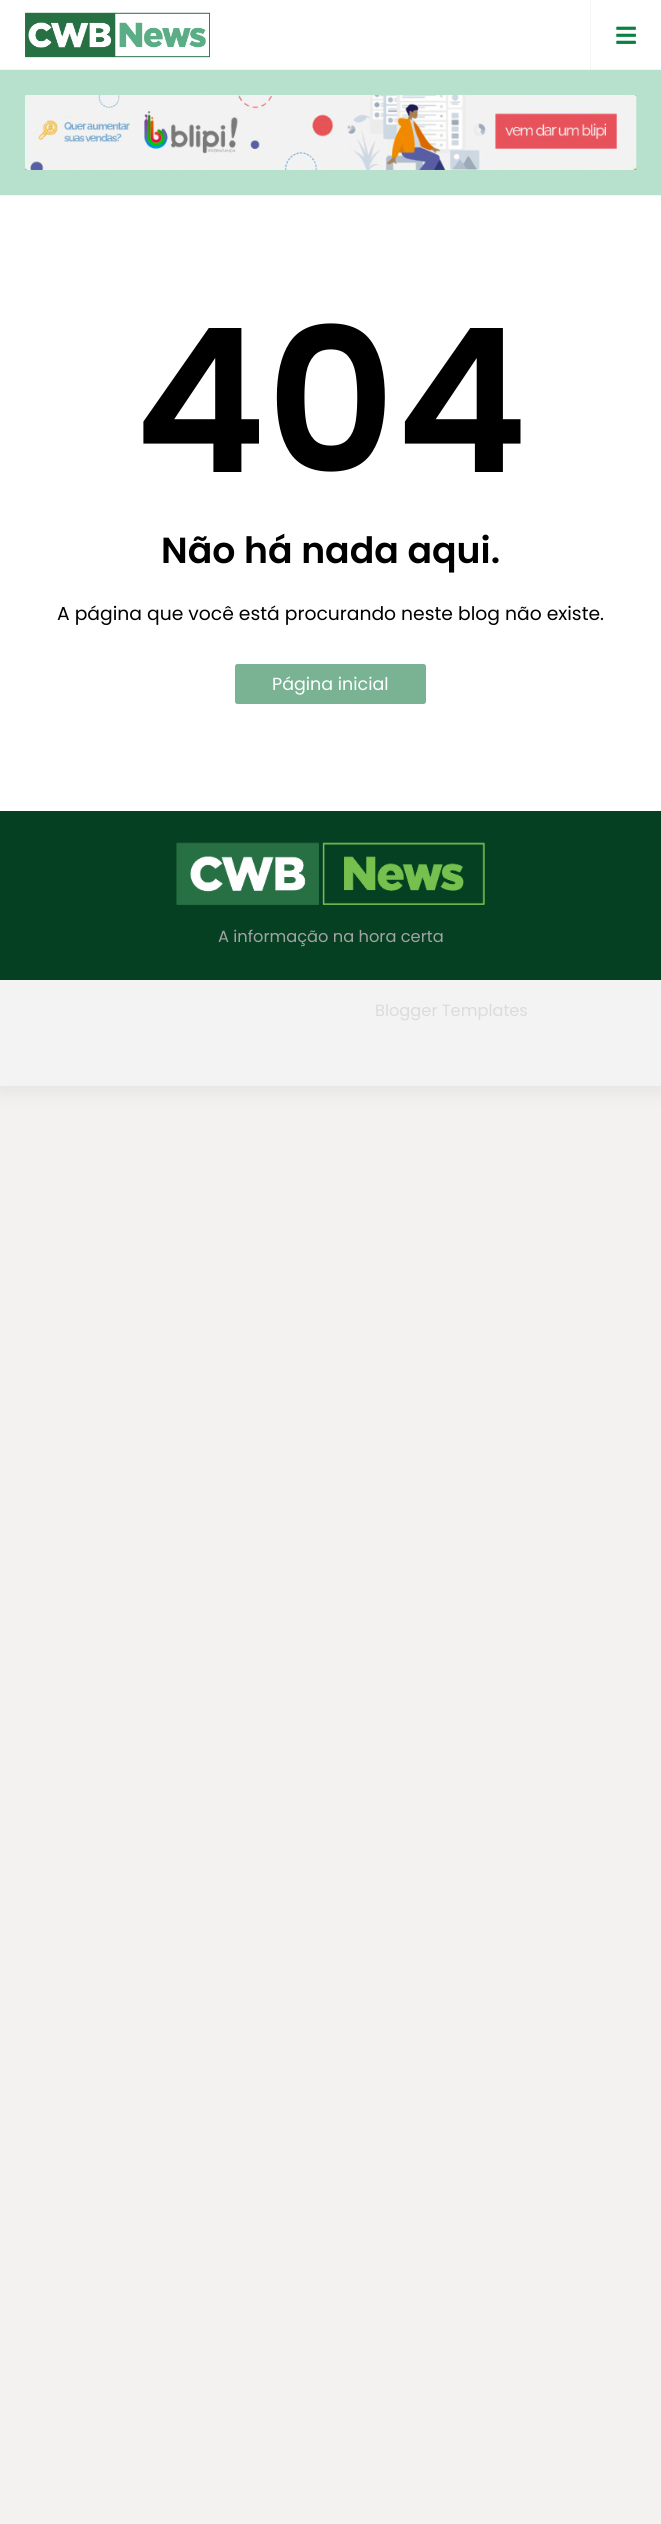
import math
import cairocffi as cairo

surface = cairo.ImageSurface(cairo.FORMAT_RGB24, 661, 2524)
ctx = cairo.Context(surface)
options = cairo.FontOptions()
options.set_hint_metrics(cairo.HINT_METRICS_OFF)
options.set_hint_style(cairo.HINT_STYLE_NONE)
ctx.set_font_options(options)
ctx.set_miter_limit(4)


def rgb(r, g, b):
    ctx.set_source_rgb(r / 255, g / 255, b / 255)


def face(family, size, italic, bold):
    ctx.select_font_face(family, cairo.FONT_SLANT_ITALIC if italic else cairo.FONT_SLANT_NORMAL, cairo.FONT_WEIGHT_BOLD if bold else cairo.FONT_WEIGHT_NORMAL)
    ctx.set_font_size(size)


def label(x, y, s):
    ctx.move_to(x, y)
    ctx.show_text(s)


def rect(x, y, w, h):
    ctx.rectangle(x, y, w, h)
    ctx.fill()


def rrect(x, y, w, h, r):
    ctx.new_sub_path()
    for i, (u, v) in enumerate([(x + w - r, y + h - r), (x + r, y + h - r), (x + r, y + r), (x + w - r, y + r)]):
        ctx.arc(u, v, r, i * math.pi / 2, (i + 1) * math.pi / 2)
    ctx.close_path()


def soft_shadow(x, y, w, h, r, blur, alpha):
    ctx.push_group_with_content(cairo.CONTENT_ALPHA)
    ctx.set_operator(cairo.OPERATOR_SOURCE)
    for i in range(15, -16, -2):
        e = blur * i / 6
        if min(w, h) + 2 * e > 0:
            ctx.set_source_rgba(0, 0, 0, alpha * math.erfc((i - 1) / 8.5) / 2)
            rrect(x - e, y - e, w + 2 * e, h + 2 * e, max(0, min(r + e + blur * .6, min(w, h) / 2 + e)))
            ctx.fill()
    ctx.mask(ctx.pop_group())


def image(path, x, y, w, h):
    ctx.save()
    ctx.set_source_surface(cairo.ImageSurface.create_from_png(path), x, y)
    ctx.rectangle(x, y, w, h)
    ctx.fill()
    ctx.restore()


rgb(244, 241, 241)
ctx.paint()
rgb(0, 0, 0)
soft_shadow(0, 0, 661, 1086, 0, 12.5, 0.1)
rgb(255, 255, 255)
rect(0, 0, 661, 811)
rgb(245, 245, 245)
rect(590, 0, 1, 70)
rect(0, 69, 661, 1)
rgb(236, 236, 236)
rect(590, 69, 1, 1)
image('image0.png', 25, 12, 185, 46)
image('image1.png', 616, 26, 20, 18)
rgb(245, 245, 245)
rect(0, 195, 661, 1)
rgb(183, 225, 205)
rect(0, 70, 661, 125)
image('image2.png', 25, 95, 612, 75)
face('Poppins SemiBold', 200, 0, 0)
rgb(0, 0, 0)
label(134, 472, '404')
face('Poppins SemiBold', 36.25, 0, 0)
label(161, 563, 'Não há nada aqui.')
face('Poppins', 18.75, 0, 0)
label(57, 620, 'A página que você está procurando neste blog não existe.')
rgb(122, 179, 148)
rrect(235, 664, 191, 40, 2.5)
ctx.fill()
face('Poppins', 17.5, 0, 0)
rgb(255, 255, 255)
label(272, 690, 'Página inicial')
rgb(6, 64, 34)
rect(0, 811, 661, 169)
image('image3.png', 176, 842, 309, 63)
face('Poppins', 16.25, 0, 0)
rgb(163, 163, 163)
label(218, 942, 'A informação na hora certa')
rgb(244, 243, 243)
rect(0, 980, 661, 106)
rgb(219, 219, 219)
label(375, 1016, 'Blogger Templates')
surface.write_to_png('render.png')
